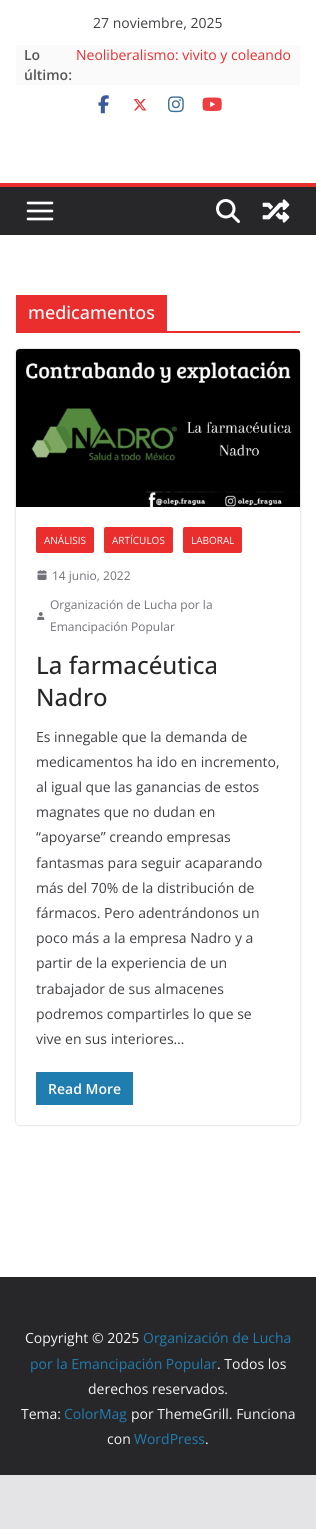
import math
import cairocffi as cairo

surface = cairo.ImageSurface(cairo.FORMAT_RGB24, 316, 1529)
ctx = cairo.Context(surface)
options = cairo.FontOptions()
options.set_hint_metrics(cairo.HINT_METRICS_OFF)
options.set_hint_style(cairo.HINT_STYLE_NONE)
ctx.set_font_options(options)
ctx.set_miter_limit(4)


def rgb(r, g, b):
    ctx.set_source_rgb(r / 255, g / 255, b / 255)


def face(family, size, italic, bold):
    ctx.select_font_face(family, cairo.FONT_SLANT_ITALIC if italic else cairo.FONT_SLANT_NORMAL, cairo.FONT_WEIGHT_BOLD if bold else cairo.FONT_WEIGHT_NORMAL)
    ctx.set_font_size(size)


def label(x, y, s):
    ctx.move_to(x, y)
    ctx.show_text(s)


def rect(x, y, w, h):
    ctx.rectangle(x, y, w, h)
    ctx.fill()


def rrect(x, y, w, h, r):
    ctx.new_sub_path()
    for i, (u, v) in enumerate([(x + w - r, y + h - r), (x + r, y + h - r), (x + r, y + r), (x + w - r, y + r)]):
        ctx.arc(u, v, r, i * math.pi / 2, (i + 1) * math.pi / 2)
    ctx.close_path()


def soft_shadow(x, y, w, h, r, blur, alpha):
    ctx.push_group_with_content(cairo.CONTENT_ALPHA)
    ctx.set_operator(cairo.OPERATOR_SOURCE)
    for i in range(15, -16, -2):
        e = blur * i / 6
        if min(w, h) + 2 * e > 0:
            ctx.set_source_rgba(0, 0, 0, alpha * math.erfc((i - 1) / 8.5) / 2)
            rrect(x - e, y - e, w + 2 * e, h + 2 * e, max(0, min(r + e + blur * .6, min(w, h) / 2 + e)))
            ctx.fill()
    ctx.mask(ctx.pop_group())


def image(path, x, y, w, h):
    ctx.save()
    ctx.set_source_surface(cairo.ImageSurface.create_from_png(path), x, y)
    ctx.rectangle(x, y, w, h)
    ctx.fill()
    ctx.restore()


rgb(228, 228, 231)
ctx.paint()
rgb(255, 255, 255)
rect(0, 0, 316, 183)
face('Open Sans', 14, 0, 0)
rgb(63, 63, 70)
label(93, 28, '27 noviembre, 2025')
rgb(250, 250, 250)
rect(16, 45, 284, 40)
face('Open Sans SemiBold', 14, 0, 0)
rgb(85, 85, 85)
label(24, 60, 'Lo')
label(24, 80, 'último:')
face('Open Sans', 14, 0, 0)
rgb(234, 46, 46)
label(76, 60, 'Neoliberalismo: vivito y coleando')
image('image0.png', 98, 95, 11, 19)
image('image1.png', 133, 99, 14, 12)
image('image2.png', 168, 96, 16, 17)
image('image3.png', 202, 97, 20, 14)
rgb(39, 39, 42)
rect(0, 187, 316, 48)
rgb(234, 46, 46)
rect(0, 183, 316, 4)
image('image4.png', 26, 201, 28, 20)
image('image5.png', 216, 199, 24, 24)
image('image6.png', 262, 199, 28, 24)
rgb(255, 255, 255)
rect(0, 235, 316, 1042)
rgb(234, 46, 46)
rect(16, 331, 284, 2)
rect(16, 295, 151, 36)
face('Open Sans Medium', 18, 0, 0)
rgb(255, 255, 255)
label(28, 319, 'medicamentos')
ctx.save()
ctx.set_fill_rule(cairo.FILL_RULE_EVEN_ODD)
ctx.new_path()
ctx.move_to(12, 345)
ctx.line_to(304, 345)
ctx.line_to(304, 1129)
ctx.line_to(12, 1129)
ctx.close_path()
ctx.move_to(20, 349)
ctx.line_to(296, 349)
ctx.curve_to(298, 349, 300, 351, 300, 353)
ctx.line_to(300, 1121)
ctx.curve_to(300, 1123, 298, 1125, 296, 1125)
ctx.line_to(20, 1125)
ctx.curve_to(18, 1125, 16, 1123, 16, 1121)
ctx.line_to(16, 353)
ctx.curve_to(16, 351, 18, 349, 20, 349)
ctx.close_path()
ctx.clip()
rgb(0, 0, 0)
soft_shadow(16, 349, 284, 776, 4, 1, 0.24)
ctx.restore()
image('image7.png', 16, 349, 284, 158)
rgb(234, 46, 46)
rrect(36, 527, 58, 26, 2)
ctx.fill()
face('Open Sans', 10, 0, 0)
rgb(255, 255, 255)
label(44, 544, 'ANÁLISIS')
rgb(234, 46, 46)
rrect(104, 527, 69, 26, 2)
ctx.fill()
rgb(255, 255, 255)
label(112, 544, 'ARTÍCULOS')
rgb(234, 46, 46)
rrect(183, 527, 59, 26, 2)
ctx.fill()
rgb(255, 255, 255)
label(191, 544, 'LABORAL')
image('image8.png', 37, 570, 10, 10)
face('Open Sans', 12, 0, 0)
rgb(113, 113, 122)
label(52, 580, '14 junio, 2022')
image('image9.png', 37, 612, 8, 8)
label(50, 609, 'Organización de Lucha por la')
label(50, 631, 'Emancipación Popular')
face('Open Sans Medium', 24, 0, 0)
rgb(39, 39, 42)
label(36, 674, 'La farmacéutica')
label(36, 706, 'Nadro')
face('Open Sans', 14, 0, 0)
rgb(63, 63, 70)
label(36, 742, 'Es innegable que la demanda de')
label(36, 767, 'medicamentos ha ido en incremento,')
label(36, 792, 'al igual que las ganancias de estos')
label(36, 817, 'magnates que no dudan en')
label(36, 842, '“apoyarse” creando empresas')
label(36, 868, 'fantasmas para seguir acaparando')
label(36, 893, 'más del 70% de la distribución de')
label(36, 918, 'fármacos. Pero adentrándonos un')
label(36, 943, 'poco más a la empresa Nadro y a')
label(36, 968, 'partir de la experiencia de un')
label(36, 994, 'trabajador de sus almacenes')
label(36, 1019, 'podremos compartirles lo que se')
label(36, 1044, 'vive en sus interiores…')
rgb(234, 46, 46)
rect(36, 1072, 97, 33)
rgb(32, 125, 175)
rrect(36, 1072, 97, 33, 2)
ctx.fill()
face('Open Sans SemiBold', 14, 0, 0)
rgb(255, 255, 255)
label(48, 1094, 'Read More')
rgb(39, 39, 42)
rect(0, 1277, 316, 198)
face('Open Sans', 14, 0, 0)
rgb(244, 244, 245)
label(25, 1343, 'Copyright © 2025')
rgb(32, 125, 175)
label(143, 1343, 'Organización de Lucha')
label(30, 1369, 'por la Emancipación Popular')
rgb(244, 244, 245)
label(217, 1369, '. Todos los')
label(88, 1394, 'derechos reservados.')
label(21, 1419, 'Tema:')
rgb(32, 125, 175)
label(64, 1419, 'ColorMag')
rgb(244, 244, 245)
label(131, 1419, 'por ThemeGrill. Funciona')
label(107, 1444, 'con')
rgb(32, 125, 175)
label(134, 1444, 'WordPress')
rgb(244, 244, 245)
label(205, 1444, '.')
surface.write_to_png('render.png')
